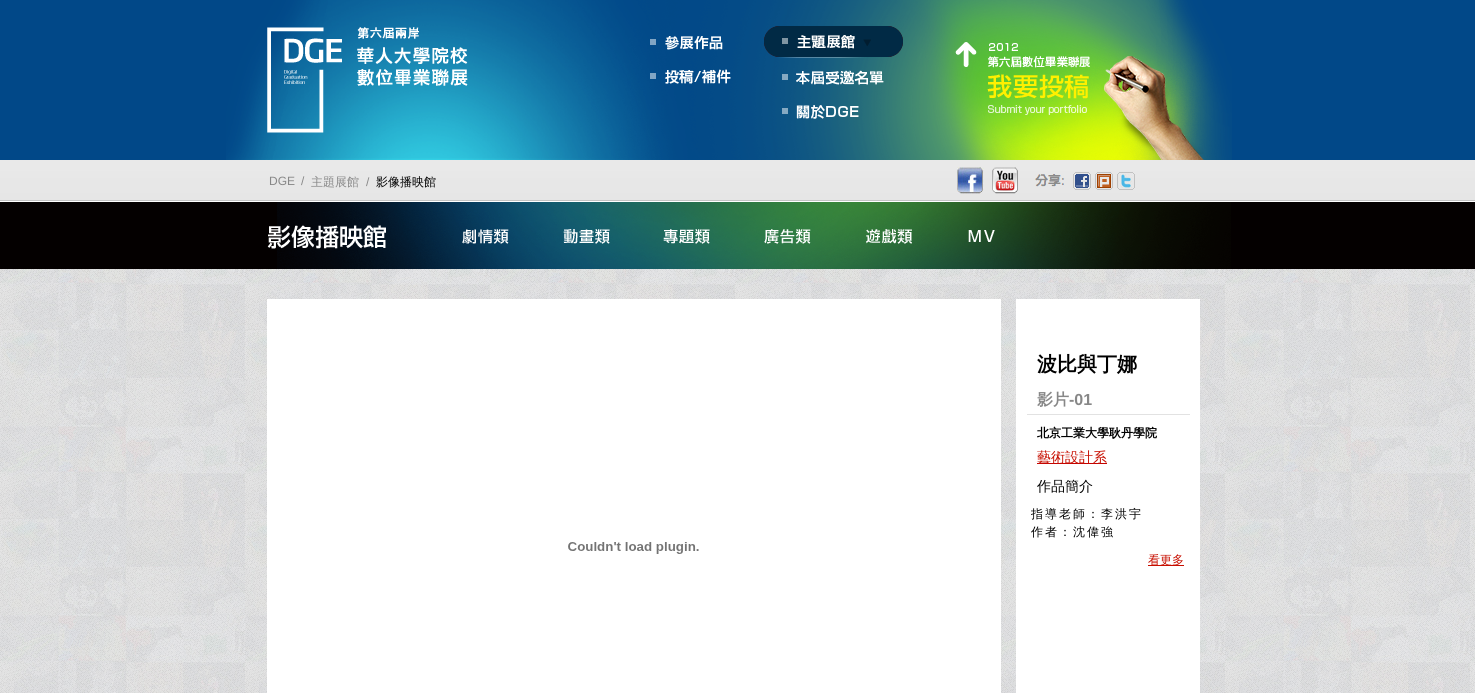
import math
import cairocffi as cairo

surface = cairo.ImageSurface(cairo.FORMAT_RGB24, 1475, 693)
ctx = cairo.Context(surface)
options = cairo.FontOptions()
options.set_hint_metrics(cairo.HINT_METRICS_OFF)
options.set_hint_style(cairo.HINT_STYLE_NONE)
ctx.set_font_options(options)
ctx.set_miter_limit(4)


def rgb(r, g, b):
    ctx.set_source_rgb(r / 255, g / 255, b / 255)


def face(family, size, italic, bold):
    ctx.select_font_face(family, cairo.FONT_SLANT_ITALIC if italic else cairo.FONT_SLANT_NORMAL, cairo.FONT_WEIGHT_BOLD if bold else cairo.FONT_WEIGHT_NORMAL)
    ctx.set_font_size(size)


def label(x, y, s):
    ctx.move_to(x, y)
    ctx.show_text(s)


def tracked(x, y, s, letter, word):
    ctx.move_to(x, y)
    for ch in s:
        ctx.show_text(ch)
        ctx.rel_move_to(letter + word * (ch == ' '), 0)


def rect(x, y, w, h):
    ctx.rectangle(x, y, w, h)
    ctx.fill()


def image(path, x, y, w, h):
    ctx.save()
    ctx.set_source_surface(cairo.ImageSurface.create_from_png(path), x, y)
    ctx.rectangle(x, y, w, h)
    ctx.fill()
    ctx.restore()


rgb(255, 255, 255)
ctx.paint()
image('image0.png', 0, 269, 1475, 424)
rgb(1, 72, 136)
rect(0, 0, 1475, 160)
image('image1.png', 226, 0, 1006, 160)
image('image2.png', 267, 27, 75, 106)
image('image3.png', 357, 27, 111, 59)
image('image4.png', 650, 36, 73, 14)
image('image5.png', 650, 69, 81, 15)
image('image6.png', 764, 26, 139, 32)
image('image7.png', 782, 70, 102, 15)
image('image8.png', 782, 105, 77, 14)
image('image9.png', 955, 42, 249, 118)
image('image10.png', 0, 160, 1475, 42)
face('Liberation Sans', 12, 0, 0)
rgb(135, 135, 135)
label(269, 185, 'DGE')
label(301, 185, '/')
face('WenQuanYi Zen Hei Medium', 12, 0, 0)
label(311, 186, '主題展館')
face('Liberation Sans', 12, 0, 0)
label(366, 186, '/')
face('WenQuanYi Zen Hei Medium', 12, 0, 0)
rgb(0, 0, 0)
label(376, 186, '影像播映館')
image('image11.png', 957, 167, 27, 27)
image('image12.png', 992, 167, 26, 27)
image('image13.png', 1035, 174, 30, 13)
image('image14.png', 1073, 172, 18, 18)
image('image15.png', 1095, 172, 18, 18)
image('image16.png', 1117, 172, 18, 18)
rgb(4, 0, 0)
rect(0, 202, 1475, 67)
image('image17.png', 277, 202, 954, 67)
image('image18.png', 267, 225, 119, 24)
image('image19.png', 462, 229, 47, 15)
image('image20.png', 563, 229, 47, 15)
image('image21.png', 663, 229, 47, 15)
image('image22.png', 764, 229, 47, 15)
image('image23.png', 866, 229, 46, 15)
image('image24.png', 968, 230, 27, 12)
rgb(255, 255, 255)
rect(267, 299, 734, 394)
image('image25.png', 568, 542, 131, 12)
rect(1016, 299, 184, 394)
face('WenQuanYi Zen Hei', 20, 0, 1)
rgb(0, 0, 0)
label(1037, 371, '波比與丁娜')
face('WenQuanYi Zen Hei', 16, 0, 1)
rgb(135, 135, 135)
label(1037, 405, '影片')
face('Liberation Sans', 16, 0, 1)
label(1069, 405, '-01')
rgb(226, 226, 226)
rect(1027, 414, 163, 1)
face('WenQuanYi Zen Hei', 12, 0, 1)
rgb(0, 0, 0)
label(1037, 437, '北京工業大學耿丹學院')
rgb(196, 3, 0)
rect(1037, 463, 70, 1)
face('WenQuanYi Zen Hei Medium', 14, 0, 0)
rgb(199, 14, 0)
label(1037, 462, '藝術設計系')
rgb(0, 0, 0)
label(1037, 491, '作品簡介')
face('WenQuanYi Zen Hei Medium', 12, 0, 0)
tracked(1031, 518, '指導老師：李洪宇', 2, 0)
tracked(1031, 536, '作者：沈偉強', 2, 0)
rgb(199, 14, 0)
rect(1148, 565, 36, 1)
label(1148, 564, '看更多')
surface.write_to_png('render.png')
